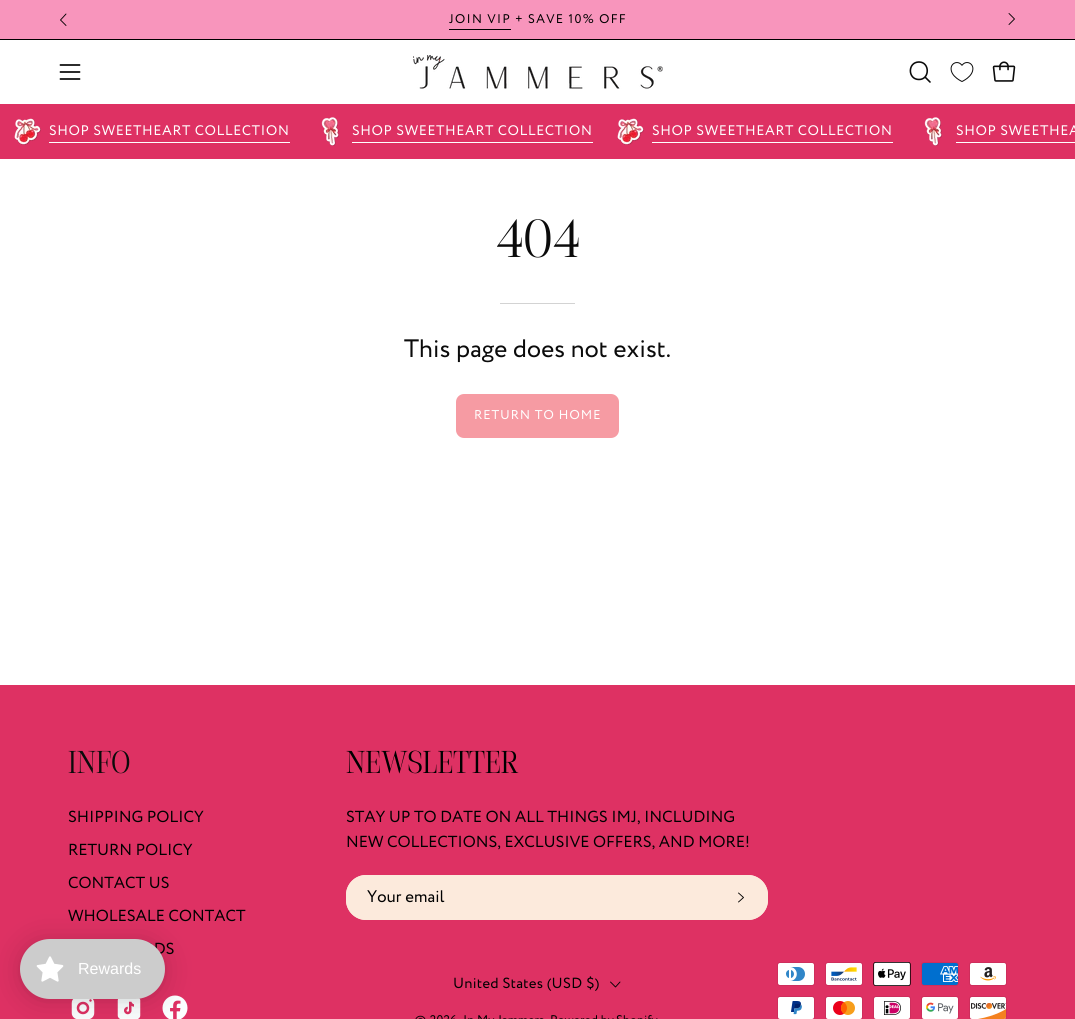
import math
import cairocffi as cairo

surface = cairo.ImageSurface(cairo.FORMAT_RGB24, 1075, 1019)
ctx = cairo.Context(surface)
options = cairo.FontOptions()
options.set_hint_metrics(cairo.HINT_METRICS_OFF)
options.set_hint_style(cairo.HINT_STYLE_NONE)
ctx.set_font_options(options)
ctx.set_miter_limit(4)


def rgb(r, g, b):
    ctx.set_source_rgb(r / 255, g / 255, b / 255)


def face(family, size, italic, bold):
    ctx.select_font_face(family, cairo.FONT_SLANT_ITALIC if italic else cairo.FONT_SLANT_NORMAL, cairo.FONT_WEIGHT_BOLD if bold else cairo.FONT_WEIGHT_NORMAL)
    ctx.set_font_size(size)


def label(x, y, s):
    ctx.move_to(x, y)
    ctx.show_text(s)


def rect(x, y, w, h):
    ctx.rectangle(x, y, w, h)
    ctx.fill()


def rrect(x, y, w, h, r):
    ctx.new_sub_path()
    for i, (u, v) in enumerate([(x + w - r, y + h - r), (x + r, y + h - r), (x + r, y + r), (x + w - r, y + r)]):
        ctx.arc(u, v, r, i * math.pi / 2, (i + 1) * math.pi / 2)
    ctx.close_path()


def soft_shadow(x, y, w, h, r, blur, alpha):
    ctx.push_group_with_content(cairo.CONTENT_ALPHA)
    ctx.set_operator(cairo.OPERATOR_SOURCE)
    for i in range(15, -16, -2):
        e = blur * i / 6
        if min(w, h) + 2 * e > 0:
            ctx.set_source_rgba(0, 0, 0, alpha * math.erfc((i - 1) / 8.5) / 2)
            rrect(x - e, y - e, w + 2 * e, h + 2 * e, max(0, min(r + e + blur * .6, min(w, h) / 2 + e)))
            ctx.fill()
    ctx.mask(ctx.pop_group())


def image(path, x, y, w, h):
    ctx.save()
    ctx.set_source_surface(cairo.ImageSurface.create_from_png(path), x, y)
    ctx.rectangle(x, y, w, h)
    ctx.fill()
    ctx.restore()


rgb(255, 255, 255)
ctx.paint()
rgb(248, 149, 188)
rect(0, 0, 1075, 39)
rgb(0, 0, 0)
rect(0, 39, 1075, 1)
ctx.new_path()
ctx.move_to(66, 25.5)
ctx.line_to(60.5, 20)
ctx.line_to(66, 14)
ctx.set_line_width(0.9)
ctx.set_line_cap(cairo.LINE_CAP_ROUND)
ctx.set_line_join(cairo.LINE_JOIN_ROUND)
ctx.stroke()
image('image0.png', 449, 14, 61, 10)
rect(449, 29, 62, 1)
image('image1.png', 515, 14, 111, 10)
ctx.new_path()
ctx.move_to(1009, 13.5)
ctx.line_to(1014.5, 19)
ctx.line_to(1009, 24.5)
ctx.stroke()
ctx.new_path()
ctx.move_to(60.5, 72)
ctx.line_to(79.5, 72)
ctx.move_to(60.5, 65)
ctx.line_to(79.5, 65)
ctx.move_to(60.5, 79)
ctx.line_to(79.5, 79)
rgb(11, 11, 11)
ctx.set_line_width(1.8)
ctx.stroke()
image('image2.png', 413, 55, 250, 34)
ctx.new_path()
ctx.move_to(919, 79.5)
ctx.curve_to(930, 79.5, 930, 62, 919, 62)
ctx.curve_to(907.5, 62, 907.5, 79.5, 919, 79.5)
ctx.close_path()
ctx.move_to(925, 77)
ctx.line_to(930, 82)
ctx.set_line_width(1.6)
ctx.stroke()
image('image3.png', 950, 62, 24, 20)
image('image4.png', 992, 61, 24, 21)
rgb(222, 49, 99)
rect(0, 104, 1075, 55)
image('image5.png', 14, 118, 27, 27)
image('image6.png', 49, 125, 239, 11)
rgb(255, 255, 255)
rect(49, 142, 241, 1)
image('image7.png', 321, 117, 18, 29)
image('image6.png', 352, 125, 239, 11)
rect(352, 142, 241, 1)
image('image5.png', 617, 118, 27, 27)
image('image6.png', 652, 125, 239, 11)
rect(652, 142, 241, 1)
image('image7.png', 924, 117, 18, 29)
image('image8.png', 956, 125, 119, 11)
rect(956, 142, 119, 1)
face('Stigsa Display', 54, 0, 0)
rgb(11, 11, 11)
label(496, 257, '404')
rgb(211, 211, 211)
rect(500, 303, 75, 1)
image('image9.png', 404, 339, 266, 24)
rgb(246, 155, 163)
rrect(456, 394, 163, 44, 8)
ctx.fill()
image('image10.png', 475, 409, 125, 11)
rgb(222, 49, 99)
rect(0, 685, 1075, 334)
face('Stigsa Display', 32, 0, 0)
rgb(11, 11, 11)
label(68, 773, 'INFO')
image('image11.png', 68, 810, 136, 13)
image('image12.png', 69, 843, 124, 13)
image('image13.png', 68, 876, 101, 13)
image('image14.png', 68, 909, 178, 13)
image('image15.png', 148, 942, 26, 13)
rgb(0, 0, 0)
label(346, 773, 'NEWSLETTER')
image('image16.png', 346, 810, 388, 15)
image('image17.png', 347, 835, 402, 15)
rgb(252, 234, 220)
ctx.new_path()
ctx.move_to(366, 875)
ctx.line_to(714, 875)
ctx.line_to(714, 920)
ctx.line_to(366, 920)
ctx.curve_to(355, 920, 346, 911, 346, 900)
ctx.line_to(346, 895)
ctx.curve_to(346, 884, 355, 875, 366, 875)
ctx.close_path()
ctx.fill()
ctx.set_fill_rule(cairo.FILL_RULE_EVEN_ODD)
ctx.new_path()
ctx.move_to(366, 875)
ctx.line_to(714, 875)
ctx.line_to(714, 920)
ctx.line_to(366, 920)
ctx.curve_to(355, 920, 346, 911, 346, 900)
ctx.line_to(346, 895)
ctx.curve_to(346, 884, 355, 875, 366, 875)
ctx.close_path()
ctx.move_to(366, 876)
ctx.line_to(714, 876)
ctx.line_to(714, 919)
ctx.line_to(366, 919)
ctx.curve_to(356, 919, 347, 910, 347, 900)
ctx.line_to(347, 895)
ctx.curve_to(347, 885, 356, 876, 366, 876)
ctx.close_path()
ctx.fill()
image('image18.png', 367, 890, 78, 13)
ctx.new_path()
ctx.move_to(714, 875)
ctx.line_to(748, 875)
ctx.curve_to(759, 875, 768, 884, 768, 895)
ctx.line_to(768, 900)
ctx.curve_to(768, 911, 759, 920, 748, 920)
ctx.line_to(714, 920)
ctx.close_path()
ctx.fill()
ctx.new_path()
ctx.move_to(714, 875)
ctx.line_to(748, 875)
ctx.curve_to(759, 875, 768, 884, 768, 895)
ctx.line_to(768, 900)
ctx.curve_to(768, 911, 759, 920, 748, 920)
ctx.line_to(714, 920)
ctx.close_path()
ctx.move_to(714, 876)
ctx.line_to(748, 876)
ctx.curve_to(758, 876, 767, 885, 767, 895)
ctx.line_to(767, 900)
ctx.curve_to(767, 910, 758, 919, 748, 919)
ctx.line_to(714, 919)
ctx.close_path()
ctx.fill()
ctx.new_path()
ctx.move_to(738.5, 893)
ctx.line_to(743.5, 897.5)
ctx.line_to(738.5, 902)
rgb(0, 0, 0)
ctx.set_line_width(0.9)
ctx.stroke()
image('image19.png', 71, 999, 24, 20)
image('image20.png', 117, 998, 24, 21)
image('image21.png', 162, 995, 26, 24)
image('image22.png', 454, 976, 145, 15)
ctx.new_path()
ctx.move_to(620, 982)
ctx.line_to(615.5, 987)
ctx.line_to(610.5, 982)
ctx.stroke()
image('image23.png', 415, 1015, 41, 4)
image('image24.png', 464, 1015, 80, 4)
image('image25.png', 551, 1015, 63, 4)
image('image26.png', 616, 1015, 42, 4)
image('image27.png', 777, 962, 38, 24)
image('image28.png', 825, 962, 38, 24)
image('image29.png', 873, 962, 38, 24)
image('image30.png', 921, 962, 38, 24)
image('image31.png', 969, 962, 38, 24)
image('image32.png', 777, 996, 38, 23)
image('image33.png', 825, 996, 38, 23)
image('image34.png', 873, 996, 38, 23)
image('image35.png', 921, 996, 38, 23)
image('image36.png', 969, 996, 38, 23)
rgb(0, 0, 0)
soft_shadow(20, 941, 145, 60, 30, 15, 0.15)
soft_shadow(20, 940, 145, 60, 30, 3, 0.05)
rgb(204, 204, 204)
rrect(20, 939, 145, 60, 30)
ctx.fill()
image('image37.png', 36, 956, 28, 26)
face('Liberation Sans', 16, 0, 0)
rgb(255, 255, 255)
label(78, 974, 'Rewards')
surface.write_to_png('render.png')
